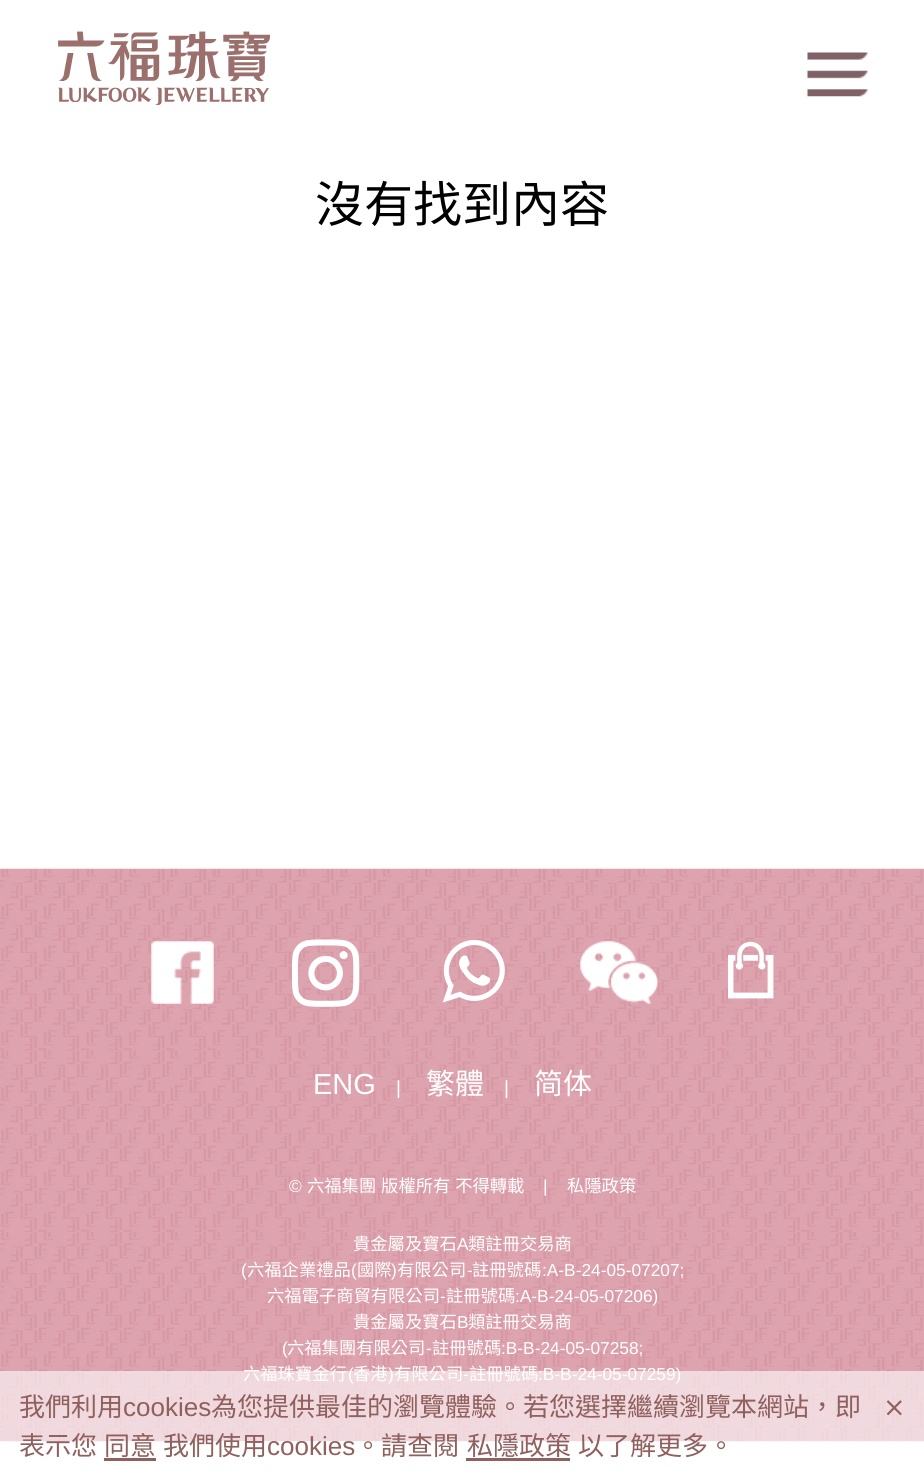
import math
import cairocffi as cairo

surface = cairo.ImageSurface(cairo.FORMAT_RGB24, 924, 1481)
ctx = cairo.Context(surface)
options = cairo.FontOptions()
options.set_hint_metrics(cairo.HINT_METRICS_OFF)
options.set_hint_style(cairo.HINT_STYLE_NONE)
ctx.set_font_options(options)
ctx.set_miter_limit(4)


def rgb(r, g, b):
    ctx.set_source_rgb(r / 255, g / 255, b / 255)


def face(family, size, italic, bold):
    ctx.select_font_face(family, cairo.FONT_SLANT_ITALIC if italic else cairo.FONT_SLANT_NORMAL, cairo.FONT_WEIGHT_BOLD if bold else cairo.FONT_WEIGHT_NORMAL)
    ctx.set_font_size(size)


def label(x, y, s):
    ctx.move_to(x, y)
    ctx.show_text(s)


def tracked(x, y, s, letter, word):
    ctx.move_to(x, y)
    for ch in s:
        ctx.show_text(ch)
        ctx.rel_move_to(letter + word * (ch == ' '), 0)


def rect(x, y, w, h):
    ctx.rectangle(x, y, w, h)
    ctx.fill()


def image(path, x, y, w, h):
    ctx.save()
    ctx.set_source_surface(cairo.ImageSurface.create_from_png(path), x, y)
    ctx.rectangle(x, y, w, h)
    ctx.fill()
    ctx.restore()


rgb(255, 255, 255)
ctx.paint()
image('image0.png', 58, 31, 212, 74)
image('image1.png', 807, 52, 61, 45)
face('Noto Sans TC', 49, 0, 0)
rgb(0, 0, 0)
label(315, 222, '沒有找到內容')
image('image2.png', 0, 868, 924, 574)
image('image3.png', 151, 941, 63, 63)
image('image4.png', 292, 939, 68, 68)
image('image5.png', 442, 939, 63, 64)
image('image6.png', 580, 941, 78, 63)
image('image7.png', 728, 941, 46, 58)
face('Liberation Sans', 29, 0, 0)
rgb(255, 255, 255)
label(313, 1094, 'ENG')
face('Liberation Sans', 19, 0, 0)
label(396, 1094, '|')
face('Noto Sans TC', 29, 0, 0)
label(426, 1094, '繁體')
face('Liberation Sans', 19, 0, 0)
label(504, 1094, '|')
face('Noto Sans SC', 29, 0, 0)
label(534, 1094, '简体')
face('Liberation Sans', 17.3, 0, 0)
label(289, 1192, '©')
face('Noto Sans TC', 17.3, 0, 0)
tracked(307, 1192, '六福集團 版權所有 不得轉載', 0, 1)
face('Liberation Sans', 17.3, 0, 0)
label(543, 1192, '|')
face('Noto Sans TC', 17.3, 0, 0)
label(567, 1192, '私隱政策')
label(353, 1250, '貴金屬及寶石')
face('Liberation Sans', 17.3, 0, 0)
label(457, 1250, 'A')
face('Noto Sans TC', 17.3, 0, 0)
label(468, 1250, '類註冊交易商')
face('Liberation Sans', 17.3, 0, 0)
label(241, 1276, '(')
face('Noto Sans TC', 17.3, 0, 0)
label(247, 1276, '六福企業禮品')
face('Liberation Sans', 17.3, 0, 0)
label(351, 1276, '(')
face('Noto Sans TC', 17.3, 0, 0)
label(357, 1276, '國際')
face('Liberation Sans', 17.3, 0, 0)
label(391, 1276, ')')
face('Noto Sans TC', 17.3, 0, 0)
label(397, 1276, '有限公司')
face('Liberation Sans', 17.3, 0, 0)
label(467, 1276, '-')
face('Noto Sans TC', 17.3, 0, 0)
label(472, 1276, '註冊號碼')
face('Liberation Sans', 17.3, 0, 0)
label(542, 1276, ':A-B-24-05-07207;')
face('Noto Sans TC', 17.3, 0, 0)
label(267, 1302, '六福電子商貿有限公司')
face('Liberation Sans', 17.3, 0, 0)
label(440, 1302, '-')
face('Noto Sans TC', 17.3, 0, 0)
label(446, 1302, '註冊號碼')
face('Liberation Sans', 17.3, 0, 0)
label(515, 1302, ':A-B-24-05-07206)')
face('Noto Sans TC', 17.3, 0, 0)
label(353, 1328, '貴金屬及寶石')
face('Liberation Sans', 17.3, 0, 0)
label(457, 1328, 'B')
face('Noto Sans TC', 17.3, 0, 0)
label(468, 1328, '類註冊交易商')
face('Liberation Sans', 17.3, 0, 0)
label(282, 1354, '(')
face('Noto Sans TC', 17.3, 0, 0)
label(287, 1354, '六福集團有限公司')
face('Liberation Sans', 17.3, 0, 0)
label(426, 1354, '-')
face('Noto Sans TC', 17.3, 0, 0)
label(432, 1354, '註冊號碼')
face('Liberation Sans', 17.3, 0, 0)
label(501, 1354, ':B-B-24-05-07258;')
face('Noto Sans TC', 17.3, 0, 0)
label(243, 1380, '六福珠寶金行')
face('Liberation Sans', 17.3, 0, 0)
label(348, 1380, '(')
face('Noto Sans TC', 17.3, 0, 0)
label(353, 1380, '香港')
face('Liberation Sans', 17.3, 0, 0)
label(388, 1380, ')')
face('Noto Sans TC', 17.3, 0, 0)
label(394, 1380, '有限公司')
face('Liberation Sans', 17.3, 0, 0)
label(463, 1380, '-')
face('Noto Sans TC', 17.3, 0, 0)
label(469, 1380, '註冊號碼')
face('Liberation Sans', 17.3, 0, 0)
label(538, 1380, ':B-B-24-05-07259)')
ctx.set_source_rgba(1, 1, 1, 0.6)
rect(0, 1371, 924, 71)
face('Noto Sans TC', 26, 0, 0)
rgb(143, 96, 93)
label(19, 1416, '我們利用')
face('Liberation Sans', 26, 0, 0)
label(123, 1416, 'cookies')
face('Noto Sans TC', 26, 0, 0)
label(211, 1416, '為您提供最佳的瀏覽體驗。若您選擇繼續瀏覽本網站，即')
image('image8.png', 886, 1400, 16, 16)
label(19, 1455, '表示您')
label(104, 1455, '同意')
rect(104, 1458, 52, 3)
label(163, 1455, '我們使用')
face('Liberation Sans', 26, 0, 0)
label(267, 1455, 'cookies')
face('Noto Sans TC', 26, 0, 0)
label(355, 1455, '。請查閱')
label(467, 1455, '私隱政策')
rect(466, 1458, 104, 3)
label(578, 1455, '以了解更多。')
surface.write_to_png('render.png')
